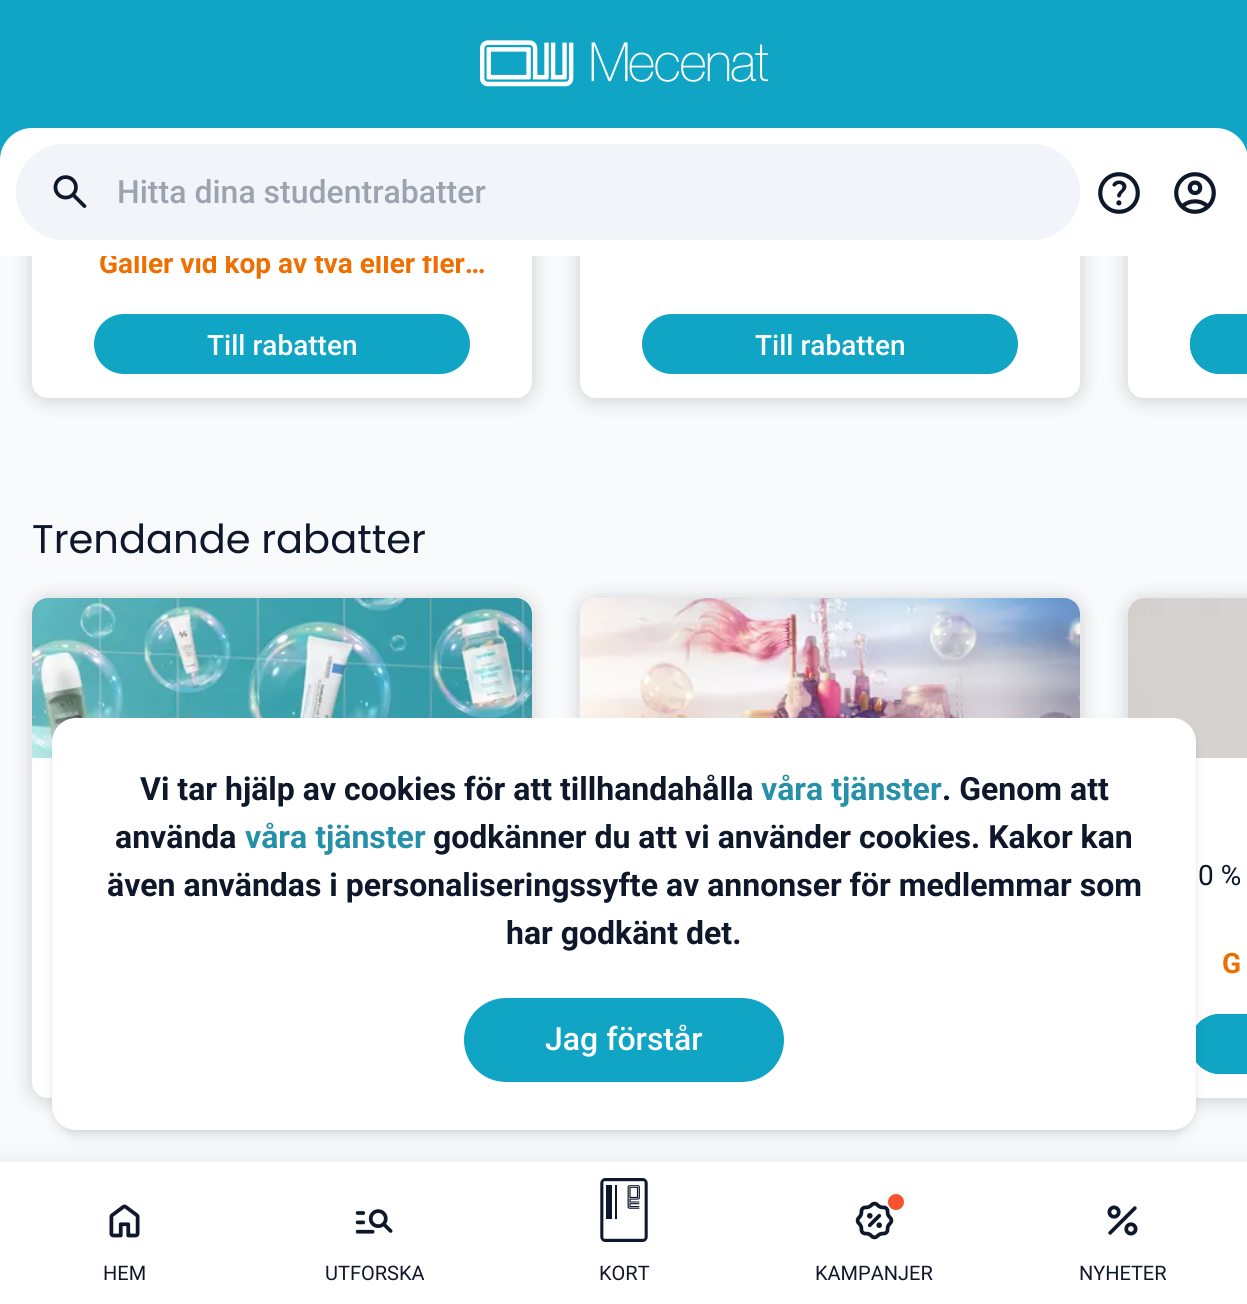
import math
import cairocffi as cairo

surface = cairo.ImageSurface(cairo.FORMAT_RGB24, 1247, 1304)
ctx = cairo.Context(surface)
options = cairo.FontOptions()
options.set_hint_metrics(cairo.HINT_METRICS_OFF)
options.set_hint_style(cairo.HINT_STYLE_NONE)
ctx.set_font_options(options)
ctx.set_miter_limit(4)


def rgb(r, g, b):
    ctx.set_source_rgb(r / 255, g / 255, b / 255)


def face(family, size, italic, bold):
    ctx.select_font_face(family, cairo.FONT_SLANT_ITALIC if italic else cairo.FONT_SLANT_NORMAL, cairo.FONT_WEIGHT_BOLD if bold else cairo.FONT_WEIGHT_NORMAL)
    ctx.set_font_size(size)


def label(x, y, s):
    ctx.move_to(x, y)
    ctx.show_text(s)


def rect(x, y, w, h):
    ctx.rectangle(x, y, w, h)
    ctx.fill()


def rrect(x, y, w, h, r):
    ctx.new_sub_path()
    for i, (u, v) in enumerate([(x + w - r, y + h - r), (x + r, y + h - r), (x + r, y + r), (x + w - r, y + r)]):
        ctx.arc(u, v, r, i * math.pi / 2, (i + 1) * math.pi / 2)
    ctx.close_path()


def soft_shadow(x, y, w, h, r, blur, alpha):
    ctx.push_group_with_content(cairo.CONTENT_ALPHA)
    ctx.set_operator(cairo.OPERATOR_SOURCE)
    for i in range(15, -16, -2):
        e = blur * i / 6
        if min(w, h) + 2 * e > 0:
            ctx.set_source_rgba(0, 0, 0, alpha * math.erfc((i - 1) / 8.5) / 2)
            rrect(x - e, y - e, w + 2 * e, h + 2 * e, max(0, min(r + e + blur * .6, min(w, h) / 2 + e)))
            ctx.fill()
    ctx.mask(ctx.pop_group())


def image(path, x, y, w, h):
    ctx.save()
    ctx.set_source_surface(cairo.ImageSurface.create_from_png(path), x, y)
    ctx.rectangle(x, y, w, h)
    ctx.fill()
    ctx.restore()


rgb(248, 250, 252)
ctx.paint()
rgb(0, 0, 0)
soft_shadow(30, -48, 504, 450, 18, 10, 0.15)
rgb(255, 255, 255)
rrect(32, -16, 500, 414, 16)
ctx.fill()
rgb(0, 0, 0)
soft_shadow(578, -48, 504, 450, 18, 10, 0.15)
rgb(255, 255, 255)
rrect(580, -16, 500, 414, 16)
ctx.fill()
rgb(0, 0, 0)
soft_shadow(1126, -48, 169, 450, 18, 10, 0.15)
rgb(255, 255, 255)
ctx.new_path()
ctx.move_to(1144, -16)
ctx.line_to(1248, -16)
ctx.line_to(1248, 398)
ctx.line_to(1144, 398)
ctx.curve_to(1135, 398, 1128, 391, 1128, 382)
ctx.line_to(1128, 0)
ctx.curve_to(1128, -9, 1135, -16, 1144, -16)
ctx.close_path()
ctx.fill()
rgb(16, 165, 197)
rect(0, 0, 1247, 160)
image('image0.png', 480, 40, 288, 47)
face('Roboto', 28, 0, 1)
rgb(239, 110, 0)
label(99, 273, 'Gäller vid köp av två eller fler…')
rgb(255, 255, 255)
ctx.new_path()
ctx.move_to(32, 128)
ctx.line_to(1216, 128)
ctx.curve_to(1233.5, 128, 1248, 142.5, 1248, 160)
ctx.line_to(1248, 256)
ctx.line_to(0, 256)
ctx.line_to(0, 160)
ctx.curve_to(0, 142.5, 14.5, 128, 32, 128)
ctx.close_path()
ctx.fill()
rgb(241, 245, 249)
rrect(16, 144, 1064, 96, 48)
ctx.fill()
image('image1.png', 53, 175, 34, 33)
face('Roboto Medium', 32, 0, 0)
rgb(156, 163, 175)
label(117, 203, 'Hitta dina studentrabatter')
image('image2.png', 1098, 172, 42, 42)
image('image3.png', 1174, 172, 42, 42)
rgb(16, 165, 197)
rrect(95, 315, 374, 58, 29)
ctx.fill_preserve()
ctx.stroke()
face('Roboto Medium', 28, 0, 0)
rgb(255, 255, 255)
label(207, 355, 'Till rabatten')
rgb(16, 165, 197)
rrect(643, 315, 374, 58, 29)
ctx.fill_preserve()
ctx.stroke()
rgb(255, 255, 255)
label(755, 355, 'Till rabatten')
rgb(16, 165, 197)
ctx.new_path()
ctx.move_to(1220, 314)
ctx.line_to(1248, 314)
ctx.line_to(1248, 374)
ctx.line_to(1220, 374)
ctx.curve_to(1203.5, 374, 1190, 360.5, 1190, 344)
ctx.curve_to(1190, 327.5, 1203.5, 314, 1220, 314)
ctx.close_path()
ctx.fill()
rrect(1191, 315, 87, 58, 29)
ctx.stroke()
face('Poppins', 40, 0, 0)
rgb(15, 23, 42)
label(32, 553, 'Trendande rabatter')
rgb(0, 0, 0)
soft_shadow(30, 598, 504, 504, 18, 10, 0.15)
rgb(255, 255, 255)
rrect(32, 598, 500, 500, 16)
ctx.fill()
image('image4.png', 32, 598, 500, 160)
rgb(0, 0, 0)
soft_shadow(578, 598, 504, 504, 18, 10, 0.15)
rgb(255, 255, 255)
rrect(580, 598, 500, 500, 16)
ctx.fill()
image('image5.png', 580, 598, 500, 120)
rgb(0, 0, 0)
soft_shadow(1126, 598, 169, 504, 18, 10, 0.15)
rgb(255, 255, 255)
ctx.new_path()
ctx.move_to(1144, 598)
ctx.line_to(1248, 598)
ctx.line_to(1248, 1098)
ctx.line_to(1144, 1098)
ctx.curve_to(1135, 1098, 1128, 1091, 1128, 1082)
ctx.line_to(1128, 614)
ctx.curve_to(1128, 605, 1135, 598, 1144, 598)
ctx.close_path()
ctx.fill()
image('image6.png', 1128, 598, 119, 160)
face('Roboto', 28, 0, 0)
rgb(15, 23, 42)
label(1198, 885, '0 %')
face('Roboto', 28, 0, 1)
rgb(239, 110, 0)
label(1222, 973, 'G')
rgb(16, 165, 197)
ctx.new_path()
ctx.move_to(1220, 1014)
ctx.line_to(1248, 1014)
ctx.line_to(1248, 1074)
ctx.line_to(1220, 1074)
ctx.curve_to(1203.5, 1074, 1190, 1060.5, 1190, 1044)
ctx.curve_to(1190, 1027.5, 1203.5, 1014, 1220, 1014)
ctx.close_path()
ctx.fill()
rrect(1191, 1015, 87, 58, 29)
ctx.stroke()
rgb(0, 0, 0)
soft_shadow(56, 726, 1136, 404, 20, 4, 0.1)
soft_shadow(54, 728, 1140, 408, 22, 6, 0.1)
soft_shadow(0, 1162, 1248, 142, 0, 15, 0.07)
rgb(255, 255, 255)
rrect(52, 718, 1144, 412, 24)
ctx.fill()
face('Roboto', 32, 0, 1)
rgb(15, 23, 42)
label(140, 800, 'Vi tar hjälp av cookies för att tillhandahålla')
rgb(37, 144, 168)
label(761, 800, 'våra tjänster')
rgb(15, 23, 42)
label(942, 800, '. Genom att')
label(115, 848, 'använda')
rgb(37, 144, 168)
label(245, 848, 'våra tjänster')
rgb(15, 23, 42)
label(433, 848, 'godkänner du att vi använder cookies. Kakor kan')
label(107, 896, 'även användas i personaliseringssyfte av annonser för medlemmar som')
label(506, 944, 'har godkänt det.')
rgb(16, 165, 197)
rrect(465, 999, 318, 82, 41)
ctx.fill_preserve()
ctx.stroke()
face('Roboto Medium', 32, 0, 0)
rgb(255, 255, 255)
label(545, 1050, 'Jag förstår')
rect(0, 1162, 1247, 142)
image('image7.png', 109, 1204, 31, 34)
face('Roboto', 20, 0, 0)
rgb(15, 23, 42)
label(103, 1280, 'HEM')
image('image8.png', 355, 1209, 38, 25)
label(325, 1280, 'UTFORSKA')
image('image9.png', 600, 1178, 48, 64)
label(599, 1280, 'KORT')
image('image10.png', 855, 1201, 39, 39)
rgb(248, 81, 45)
ctx.arc(896, 1202, 8, 0, 2 * math.pi)
ctx.fill()
rgb(15, 23, 42)
label(815, 1280, 'KAMPANJER')
image('image11.png', 1107, 1205, 31, 31)
label(1079, 1280, 'NYHETER')
surface.write_to_png('render.png')
